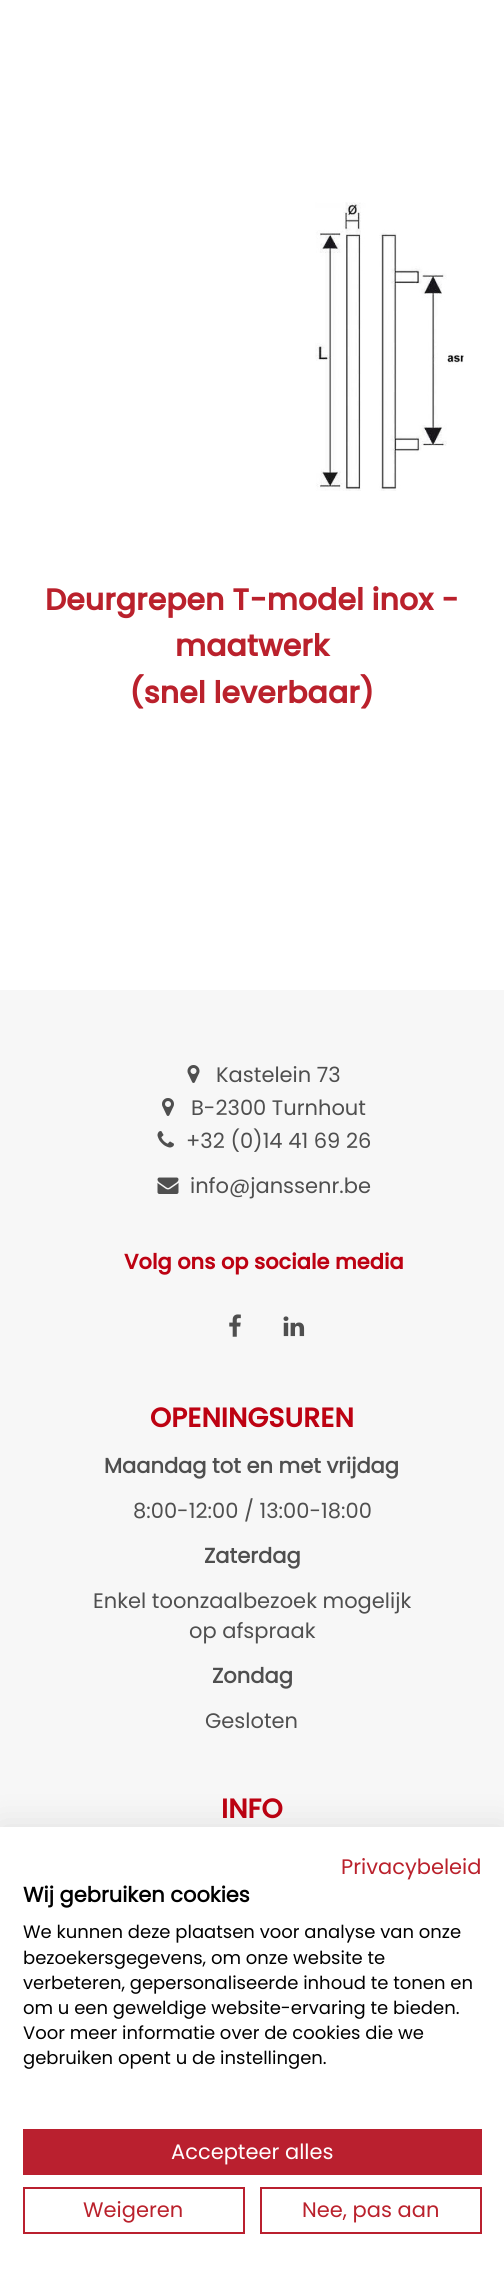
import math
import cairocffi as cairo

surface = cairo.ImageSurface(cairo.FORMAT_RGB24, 504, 2273)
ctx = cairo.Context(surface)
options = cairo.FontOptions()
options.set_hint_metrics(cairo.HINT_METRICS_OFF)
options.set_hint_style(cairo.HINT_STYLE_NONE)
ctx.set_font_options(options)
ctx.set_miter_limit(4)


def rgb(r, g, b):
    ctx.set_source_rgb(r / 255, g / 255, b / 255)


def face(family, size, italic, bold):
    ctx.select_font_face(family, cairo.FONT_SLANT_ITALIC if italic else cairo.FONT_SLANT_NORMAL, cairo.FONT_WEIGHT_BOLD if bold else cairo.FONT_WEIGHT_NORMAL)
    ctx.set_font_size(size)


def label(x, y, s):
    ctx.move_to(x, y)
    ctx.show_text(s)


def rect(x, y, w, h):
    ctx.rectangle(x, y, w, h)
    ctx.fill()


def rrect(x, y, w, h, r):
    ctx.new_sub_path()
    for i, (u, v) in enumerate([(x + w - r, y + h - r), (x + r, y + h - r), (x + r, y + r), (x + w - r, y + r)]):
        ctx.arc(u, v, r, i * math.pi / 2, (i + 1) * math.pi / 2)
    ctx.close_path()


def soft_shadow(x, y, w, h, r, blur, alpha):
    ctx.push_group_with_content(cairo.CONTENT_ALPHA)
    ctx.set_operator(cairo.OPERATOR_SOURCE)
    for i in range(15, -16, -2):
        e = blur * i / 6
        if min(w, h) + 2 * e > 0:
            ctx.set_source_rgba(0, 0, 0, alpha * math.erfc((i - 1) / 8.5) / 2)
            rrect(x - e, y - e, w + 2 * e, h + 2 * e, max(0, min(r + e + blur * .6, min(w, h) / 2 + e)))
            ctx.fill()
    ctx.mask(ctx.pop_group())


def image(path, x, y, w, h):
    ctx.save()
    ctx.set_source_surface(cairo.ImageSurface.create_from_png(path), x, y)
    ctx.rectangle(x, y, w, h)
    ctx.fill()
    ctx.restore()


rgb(255, 255, 255)
ctx.paint()
image('image0.png', 315, 202, 149, 289)
face('Poppins', 30, 0, 1)
rgb(186, 33, 44)
label(45, 610, 'Deurgrepen T-model inox -')
label(175, 656, 'maatwerk')
label(129, 703, '(snel leverbaar)')
rgb(247, 247, 247)
rect(0, 990, 504, 837)
image('image1.png', 187, 1065, 13, 18)
face('Poppins', 21, 0, 0)
rgb(79, 79, 79)
label(216, 1082, 'Kastelein 73')
image('image2.png', 162, 1098, 12, 18)
label(191, 1115, 'B-2300 Turnhout')
image('image3.png', 157, 1131, 17, 17)
label(186, 1148, '+32 (0)14 41 69 26')
image('image4.png', 157, 1177, 22, 17)
label(190, 1193, 'info@janssenr.be')
face('Poppins', 21, 0, 1)
rgb(189, 2, 18)
label(124, 1269, 'Volg ons op sociale media')
image('image5.png', 229, 1314, 12, 23)
image('image6.png', 283, 1316, 22, 21)
face('Poppins', 27, 0, 1)
label(150, 1427, 'OPENINGSUREN')
face('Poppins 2', 21, 0, 1)
rgb(79, 79, 79)
label(104, 1473, 'Maandag tot en met vrijdag')
face('Poppins', 21, 0, 0)
label(133, 1518, '8:00-12:00 / 13:00-18:00')
face('Poppins 2', 21, 0, 1)
label(204, 1563, 'Zaterdag')
face('Poppins', 21, 0, 0)
label(93, 1608, 'Enkel toonzaalbezoek mogelijk')
label(189, 1638, 'op afspraak')
face('Poppins 2', 21, 0, 1)
label(212, 1683, 'Zondag')
face('Poppins', 21, 0, 0)
label(205, 1728, 'Gesloten')
face('Poppins', 27, 0, 1)
rgb(189, 2, 18)
label(221, 1818, 'INFO')
rgb(0, 0, 0)
soft_shadow(0, 1827, 504, 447, 0, 18, 0.1)
rgb(255, 255, 255)
rect(0, 1827, 504, 446)
face('Poppins', 21, 0, 0)
rgb(186, 33, 44)
label(341, 1874, 'Privacybeleid')
face('Poppins 2', 21, 0, 1)
rgb(0, 0, 0)
label(23, 1902, 'Wij gebruiken cookies')
face('Poppins', 18, 0, 0)
label(23, 1938, 'We kunnen deze plaatsen voor analyse van onze')
label(23, 1964, 'bezoekersgegevens, om onze website te')
label(23, 1989, 'verbeteren, gepersonaliseerde inhoud te tonen en')
label(23, 2014, 'om u een geweldige website-ervaring te bieden.')
label(23, 2039, 'Voor meer informatie over de cookies die we')
label(23, 2064, 'gebruiken opent u de instellingen.')
rgb(186, 32, 47)
rect(23, 2129, 459, 46)
face('Poppins', 21, 0, 0)
rgb(255, 255, 255)
label(171, 2159, 'Accepteer alles')
ctx.rectangle(24, 2188, 220, 45)
rgb(186, 32, 47)
ctx.stroke()
rgb(186, 33, 44)
label(83, 2217, 'Weigeren')
ctx.rectangle(261, 2188, 220, 45)
rgb(186, 32, 47)
ctx.stroke()
rgb(186, 33, 44)
label(302, 2217, 'Nee, pas aan')
surface.write_to_png('render.png')
